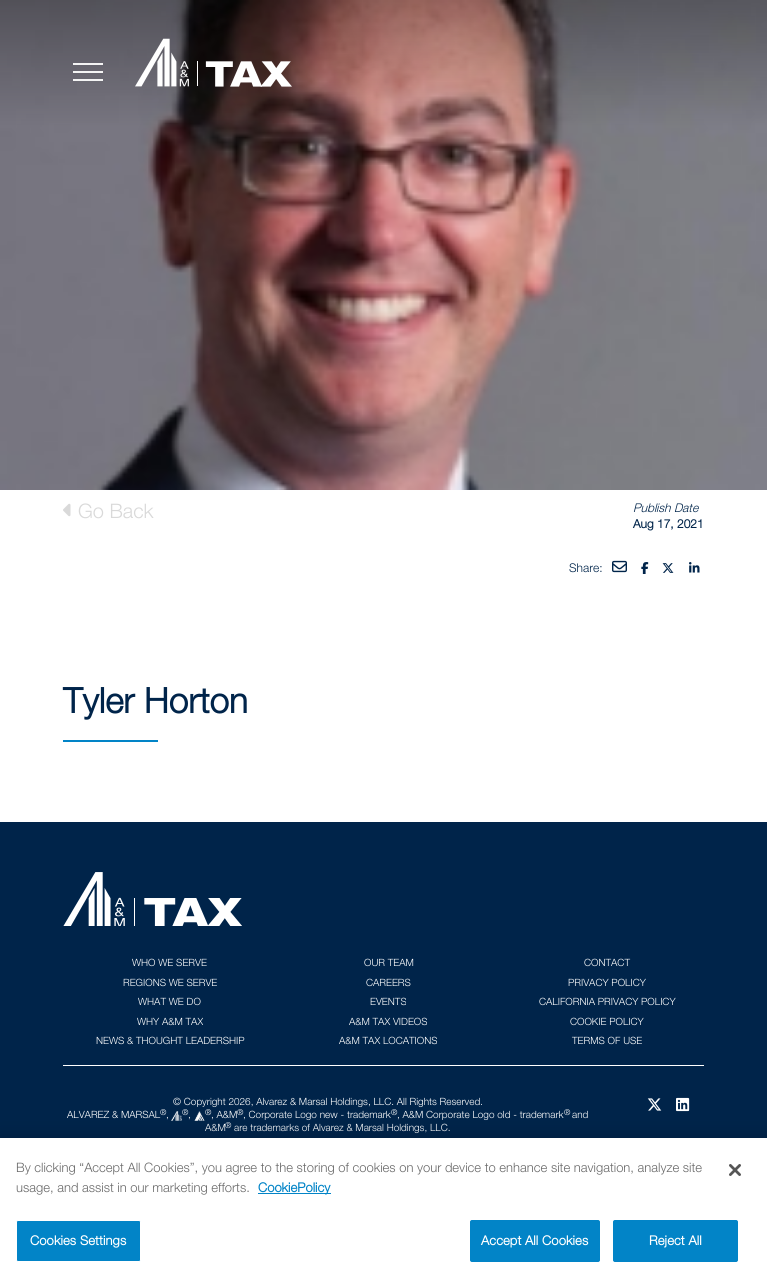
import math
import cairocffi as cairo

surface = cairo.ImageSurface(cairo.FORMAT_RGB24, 767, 1281)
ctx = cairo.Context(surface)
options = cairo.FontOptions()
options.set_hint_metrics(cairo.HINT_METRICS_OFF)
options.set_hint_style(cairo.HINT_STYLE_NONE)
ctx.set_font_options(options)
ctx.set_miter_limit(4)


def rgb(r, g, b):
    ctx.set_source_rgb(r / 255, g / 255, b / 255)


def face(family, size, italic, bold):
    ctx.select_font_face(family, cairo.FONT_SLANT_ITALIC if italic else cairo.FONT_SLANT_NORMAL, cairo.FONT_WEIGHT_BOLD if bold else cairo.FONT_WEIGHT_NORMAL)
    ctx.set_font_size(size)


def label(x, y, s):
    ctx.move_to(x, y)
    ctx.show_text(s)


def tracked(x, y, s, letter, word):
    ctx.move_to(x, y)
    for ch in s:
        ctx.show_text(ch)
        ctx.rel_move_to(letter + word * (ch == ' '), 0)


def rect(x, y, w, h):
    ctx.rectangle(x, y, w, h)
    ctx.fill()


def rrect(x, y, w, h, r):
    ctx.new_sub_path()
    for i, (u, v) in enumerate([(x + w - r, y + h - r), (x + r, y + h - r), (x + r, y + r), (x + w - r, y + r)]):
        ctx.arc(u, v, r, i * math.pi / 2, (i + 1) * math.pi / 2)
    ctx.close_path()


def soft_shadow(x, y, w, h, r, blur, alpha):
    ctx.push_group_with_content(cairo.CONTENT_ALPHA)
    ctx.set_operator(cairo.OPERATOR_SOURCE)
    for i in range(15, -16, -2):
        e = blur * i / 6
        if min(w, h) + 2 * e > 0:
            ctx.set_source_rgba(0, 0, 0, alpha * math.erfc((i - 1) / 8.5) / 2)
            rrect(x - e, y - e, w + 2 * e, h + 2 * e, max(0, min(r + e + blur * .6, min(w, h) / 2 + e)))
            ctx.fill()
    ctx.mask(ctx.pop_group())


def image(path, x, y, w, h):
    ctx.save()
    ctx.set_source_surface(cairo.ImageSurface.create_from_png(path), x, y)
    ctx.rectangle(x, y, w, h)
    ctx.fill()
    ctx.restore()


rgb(255, 255, 255)
ctx.paint()
image('image1.png', 0, 0, 767, 490)
rgb(244, 244, 244)
rect(73, 63, 30, 2)
rect(73, 71, 30, 2)
rect(73, 79, 30, 2)
image('image0.png', 135, 38, 157, 49)
image('image2.png', 63, 503, 8, 14)
face('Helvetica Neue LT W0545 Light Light', 20, 0, 0)
rgb(217, 217, 217)
label(78, 518, 'Go Back')
face('Helvetica Neue LT W0545 Light Light', 12, 1, 0)
rgb(0, 36, 74)
label(633, 512, 'Publish Date')
face('Helvetica Neue LT W0545 Light', 12, 0, 1)
label(633, 528, 'Aug 17, 2021')
face('Helvetica Neue LT W0545 Light Light', 12, 0, 0)
label(569, 572, 'Share:')
image('image3.png', 612, 560, 15, 13)
image('image4.png', 641, 562, 8, 12)
image('image5.png', 662, 563, 12, 10)
image('image6.png', 689, 562, 11, 11)
face('Helvetica Neue LT W0545 Light', 35, 0, 1)
label(63, 713, 'Tyler Horton')
rgb(2, 132, 199)
rect(63, 740, 95, 2)
rgb(0, 36, 74)
rect(0, 822, 767, 316)
image('image7.png', 63, 872, 179, 54)
face('Helvetica Neue LT W0545 Light Light', 10, 0, 0)
rgb(255, 255, 255)
label(132, 966, 'WHO WE SERVE')
label(364, 966, 'OUR TEAM')
label(584, 966, 'CONTACT')
label(123, 986, 'REGIONS WE SERVE')
label(366, 986, 'CAREERS')
label(568, 986, 'PRIVACY POLICY')
label(138, 1005, 'WHAT WE DO')
label(370, 1005, 'EVENTS')
label(539, 1005, 'CALIFORNIA PRIVACY POLICY')
label(137, 1025, 'WHY A&M TAX')
label(349, 1025, 'A&M TAX VIDEOS')
label(570, 1025, 'COOKIE POLICY')
label(96, 1044, 'NEWS & THOUGHT LEADERSHIP')
label(339, 1044, 'A&M TAX LOCATIONS')
label(572, 1044, 'TERMS OF USE')
rect(63, 1065, 641, 1)
label(173, 1105, '© Copyright 2026, Alvarez & Marsal Holdings, LLC. All Rights Reserved.')
label(67, 1118, 'ALVAREZ & MARSAL')
face('Helvetica Neue LT W0545 Light Light', 8, 0, 0)
label(160, 1115, '®')
face('Helvetica Neue LT W0545 Light Light', 10, 0, 0)
label(166, 1118, ',')
image('image8.png', 171, 1111, 11, 10)
face('Helvetica Neue LT W0545 Light Light', 8, 0, 0)
label(182, 1115, '®')
face('Helvetica Neue LT W0545 Light Light', 10, 0, 0)
label(188, 1118, ',')
image('image9.png', 194, 1111, 11, 10)
face('Helvetica Neue LT W0545 Light Light', 8, 0, 0)
label(205, 1115, '®')
face('Helvetica Neue LT W0545 Light Light', 10, 0, 0)
label(211, 1118, ', A&M')
face('Helvetica Neue LT W0545 Light Light', 8, 0, 0)
label(237, 1115, '®')
face('Helvetica Neue LT W0545 Light Light', 10, 0, 0)
label(243, 1118, ', Corporate Logo new - trademark')
face('Helvetica Neue LT W0545 Light Light', 8, 0, 0)
label(391, 1115, '®')
face('Helvetica Neue LT W0545 Light Light', 10, 0, 0)
label(397, 1118, ', A&M Corporate Logo old - trademark')
face('Helvetica Neue LT W0545 Light Light', 8, 0, 0)
label(564, 1115, '®')
face('Helvetica Neue LT W0545 Light Light', 10, 0, 0)
label(572, 1118, 'and')
label(205, 1131, 'A&M')
face('Helvetica Neue LT W0545 Light Light', 8, 0, 0)
label(225, 1128, '®')
face('Helvetica Neue LT W0545 Light Light', 10, 0, 0)
label(234, 1131, 'are trademarks of Alvarez & Marsal Holdings, LLC.')
image('image10.png', 647, 1098, 15, 13)
image('image11.png', 676, 1097, 14, 15)
rgb(0, 0, 0)
soft_shadow(0, 1138, 767, 143, 0, 9, 0.2)
rgb(255, 255, 255)
rect(0, 1138, 767, 143)
face('Helvetica Neue LT W0545 Light Light', 13, 0, 0)
rgb(105, 105, 105)
label(16, 1172, 'By clicking “Accept All Cookies”, you agree to the storing of cookies on your device to enhance site navigation, analyze site')
label(16, 1192, 'usage, and assist in our marketing efforts.')
rgb(2, 132, 199)
rect(258, 1193, 73, 1)
face('Helvetica Neue LT W0545 Light', 13, 0, 1)
label(258, 1192, 'CookiePolicy')
rrect(16.5, 1220.5, 124, 41, 1.5)
ctx.fill_preserve()
rgb(255, 255, 255)
ctx.set_line_width(1)
ctx.stroke()
tracked(30, 1245, 'Cookies Settings', 0.1, 0)
rgb(2, 132, 199)
rrect(470.5, 1220.5, 129, 41, 1.5)
ctx.fill_preserve()
ctx.stroke()
rgb(255, 255, 255)
tracked(481, 1245, 'Accept All Cookies', 0.1, 0)
rgb(2, 132, 199)
rrect(613.5, 1220.5, 124, 41, 1.5)
ctx.fill_preserve()
ctx.stroke()
rgb(255, 255, 255)
tracked(649, 1245, 'Reject All', 0.1, 0)
image('image12.png', 729, 1164, 12, 12)
surface.write_to_png('render.png')
